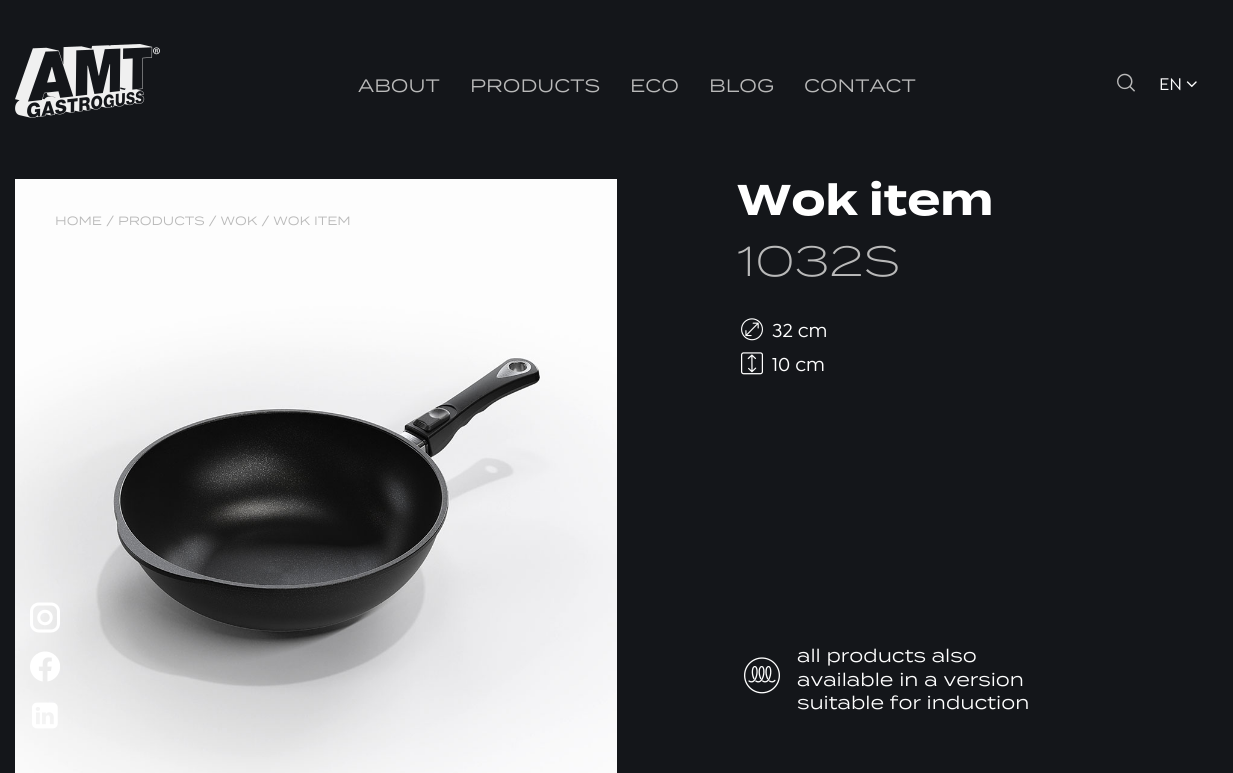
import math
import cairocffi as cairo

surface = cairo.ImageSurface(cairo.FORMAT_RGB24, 1233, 773)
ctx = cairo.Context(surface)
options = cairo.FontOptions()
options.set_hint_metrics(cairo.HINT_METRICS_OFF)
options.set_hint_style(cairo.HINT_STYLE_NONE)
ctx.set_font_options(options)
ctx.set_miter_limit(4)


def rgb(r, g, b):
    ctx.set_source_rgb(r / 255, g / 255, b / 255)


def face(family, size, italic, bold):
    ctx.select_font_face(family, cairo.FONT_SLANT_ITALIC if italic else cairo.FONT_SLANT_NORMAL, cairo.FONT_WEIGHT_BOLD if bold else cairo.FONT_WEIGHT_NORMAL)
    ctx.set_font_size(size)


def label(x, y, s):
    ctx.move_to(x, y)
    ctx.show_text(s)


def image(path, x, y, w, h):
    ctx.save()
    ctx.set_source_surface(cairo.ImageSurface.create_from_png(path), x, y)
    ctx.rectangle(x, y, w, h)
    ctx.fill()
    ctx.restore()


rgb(20, 22, 26)
ctx.paint()
image('image0.png', 15, 44, 145, 74)
face('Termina', 18, 0, 0)
rgb(185, 185, 185)
label(358, 92, 'ABOUT')
label(470, 92, 'PRODUCTS')
label(630, 92, 'ECO')
label(709, 92, 'BLOG')
label(804, 92, 'CONTACT')
image('image1.png', 1117, 73, 18, 19)
face('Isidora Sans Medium', 18, 0, 0)
rgb(255, 255, 255)
label(1159, 90, 'EN')
image('image2.png', 1186, 81, 11, 7)
image('image6.png', 15, 179, 602, 594)
image('image3.png', 30, 602, 30, 31)
image('image4.png', 30, 651, 30, 31)
image('image5.png', 32, 702, 26, 27)
face('Termina', 12, 0, 0)
rgb(185, 185, 185)
label(55, 225, 'HOME / PRODUCTS / WOK / WOK ITEM')
face('Termina', 43, 0, 1)
rgb(255, 255, 255)
label(737, 215, 'Wok item')
face('Termina Light', 42, 0, 0)
rgb(185, 185, 185)
label(737, 276, '1032S')
image('image7.png', 741, 318, 22, 23)
face('Isidora Sans Medium', 20, 0, 0)
rgb(255, 255, 255)
label(772, 337, '32 cm')
image('image8.png', 741, 352, 22, 23)
label(772, 371, '10 cm')
image('image9.png', 744, 657, 36, 37)
face('Termina', 18, 0, 0)
label(797, 662, 'all products also')
label(797, 686, 'available in a version')
label(797, 709, 'suitable for induction')
surface.write_to_png('render.png')
